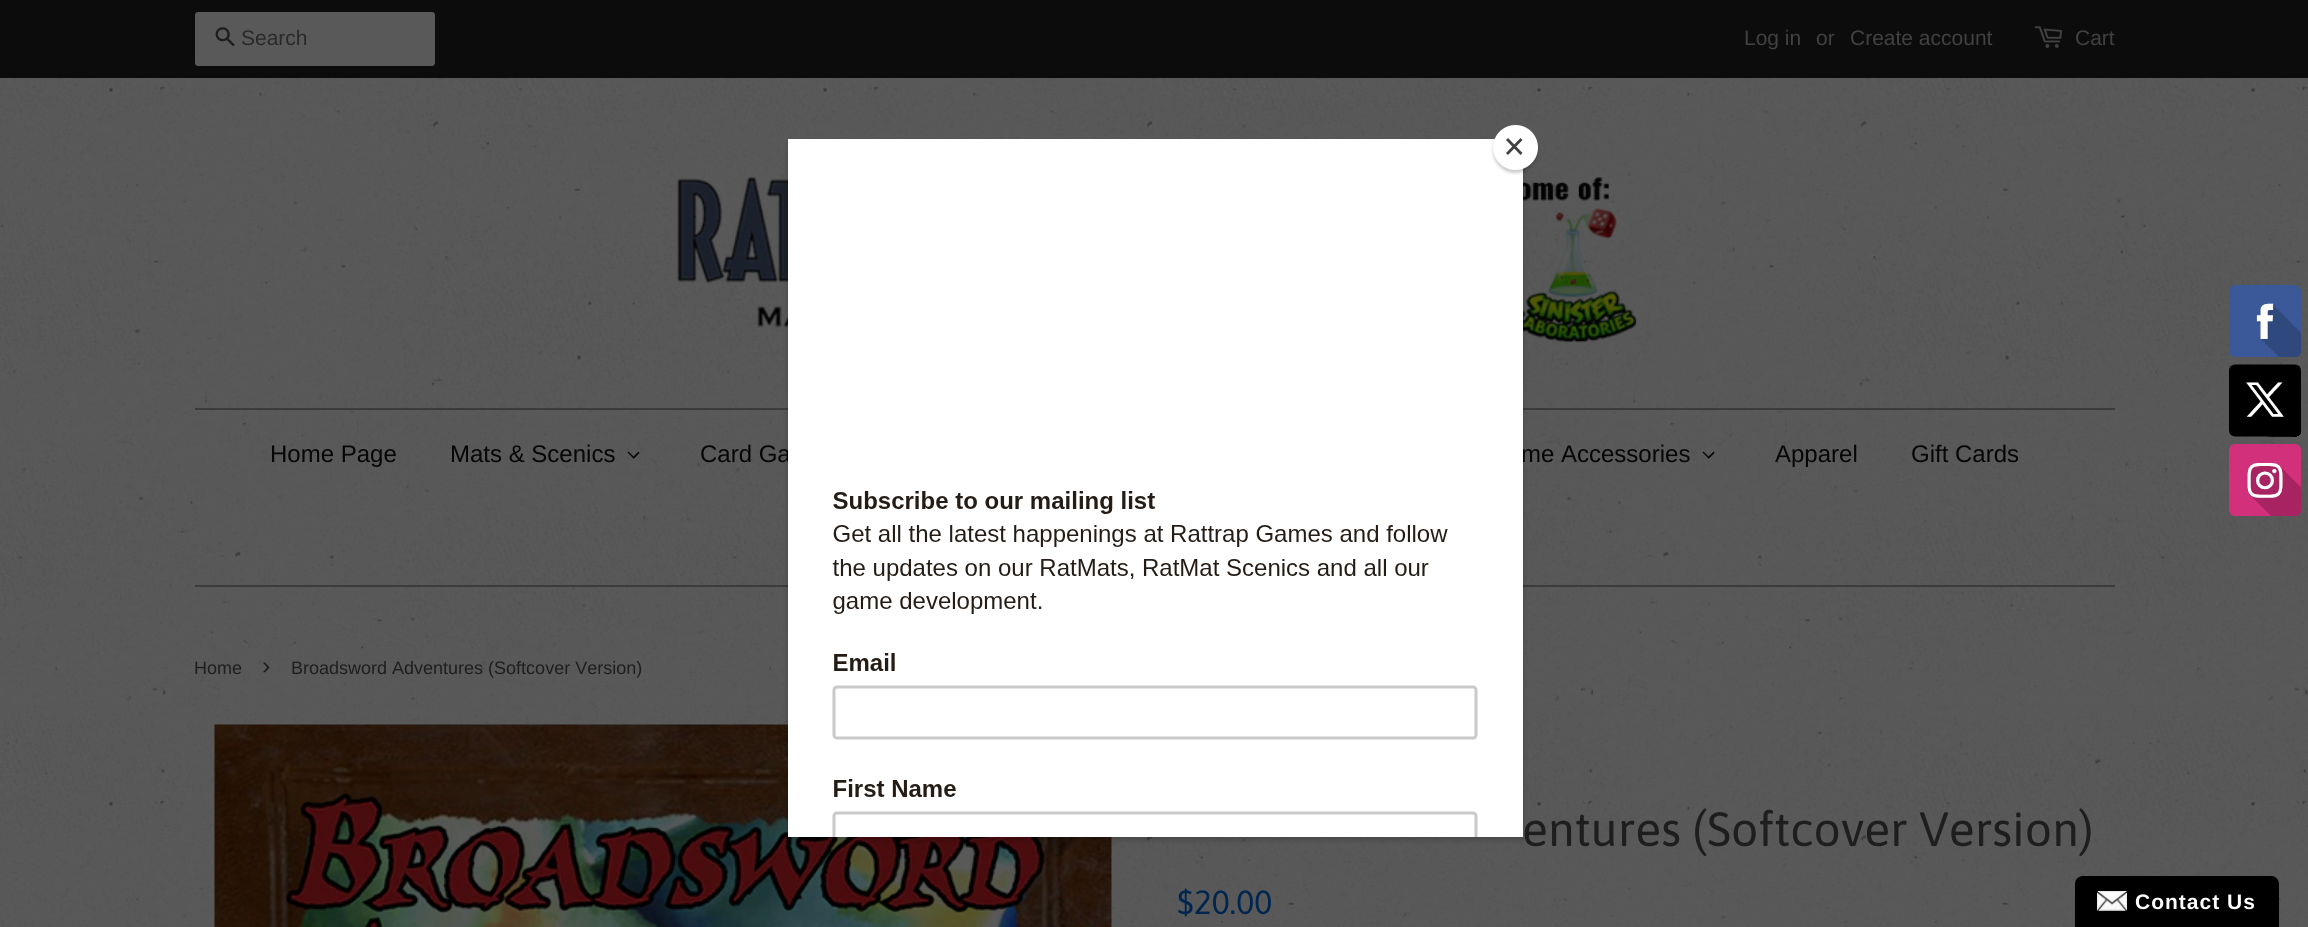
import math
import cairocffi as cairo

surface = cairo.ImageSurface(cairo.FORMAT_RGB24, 2308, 927)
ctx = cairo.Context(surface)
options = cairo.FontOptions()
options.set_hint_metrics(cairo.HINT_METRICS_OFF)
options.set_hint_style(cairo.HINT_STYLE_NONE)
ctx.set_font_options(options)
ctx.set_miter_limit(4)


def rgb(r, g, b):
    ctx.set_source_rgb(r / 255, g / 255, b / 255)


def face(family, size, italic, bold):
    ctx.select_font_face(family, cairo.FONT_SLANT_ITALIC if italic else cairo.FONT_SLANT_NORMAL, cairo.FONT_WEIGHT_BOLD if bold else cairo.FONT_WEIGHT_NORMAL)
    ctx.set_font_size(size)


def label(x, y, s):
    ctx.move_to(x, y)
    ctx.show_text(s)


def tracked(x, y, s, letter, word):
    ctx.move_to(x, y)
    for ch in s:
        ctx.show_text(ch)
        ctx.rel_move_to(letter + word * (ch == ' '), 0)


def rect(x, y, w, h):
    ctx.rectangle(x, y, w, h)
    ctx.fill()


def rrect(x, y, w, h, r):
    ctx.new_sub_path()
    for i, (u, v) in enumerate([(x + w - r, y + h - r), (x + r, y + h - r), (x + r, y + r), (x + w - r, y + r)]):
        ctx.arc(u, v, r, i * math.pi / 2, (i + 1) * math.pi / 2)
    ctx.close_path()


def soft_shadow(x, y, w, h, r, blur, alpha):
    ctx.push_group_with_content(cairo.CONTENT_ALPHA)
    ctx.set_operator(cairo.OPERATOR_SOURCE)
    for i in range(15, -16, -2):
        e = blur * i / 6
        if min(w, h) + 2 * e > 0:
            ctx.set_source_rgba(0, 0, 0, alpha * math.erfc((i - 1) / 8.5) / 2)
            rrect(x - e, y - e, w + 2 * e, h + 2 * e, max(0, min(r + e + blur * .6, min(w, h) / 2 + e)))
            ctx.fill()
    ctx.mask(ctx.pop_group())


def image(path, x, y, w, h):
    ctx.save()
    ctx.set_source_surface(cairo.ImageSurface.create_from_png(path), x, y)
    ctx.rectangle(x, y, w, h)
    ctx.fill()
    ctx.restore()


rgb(255, 255, 255)
ctx.paint()
image('image0.png', 0, 78, 2308, 849)
rgb(12, 12, 12)
rect(0, 0, 2308, 78)
rgb(89, 89, 89)
rrect(195, 12, 240, 54, 3)
ctx.fill()
image('image1.png', 215, 27, 20, 19)
face('Liberation Sans', 21, 0, 0)
rgb(41, 41, 41)
label(241, 45, 'Search')
rgb(65, 65, 65)
label(1744, 45, 'Log in')
label(1816, 45, 'or')
label(1850, 45, 'Create account')
image('image2.png', 2034, 26, 29, 22)
label(2075, 45, 'Cart')
image('image3.png', 677, 175, 961, 168)
rgb(59, 59, 59)
rect(195, 408, 1920, 2)
rect(195, 585, 1920, 2)
face('Liberation Sans', 24, 0, 0)
rgb(6, 6, 6)
label(270, 462, 'Home Page')
label(450, 462, 'Mats & Scenics')
ctx.new_path()
ctx.move_to(638.5, 451.5)
ctx.line_to(639.5, 453)
ctx.line_to(634, 458.5)
ctx.line_to(632.5, 457.5)
ctx.close_path()
ctx.fill()
ctx.new_path()
ctx.move_to(628.5, 451.5)
ctx.line_to(634.5, 457.5)
ctx.line_to(633.5, 458.5)
ctx.line_to(627.5, 452.5)
ctx.close_path()
ctx.fill()
label(700, 462, 'Card Ga')
label(1521, 462, 'me Accessories')
ctx.new_path()
ctx.move_to(1713.5, 451.5)
ctx.line_to(1714.5, 453)
ctx.line_to(1709, 458.5)
ctx.line_to(1707.5, 457.5)
ctx.close_path()
ctx.fill()
ctx.new_path()
ctx.move_to(1703.5, 451.5)
ctx.line_to(1709.5, 457.5)
ctx.line_to(1708.5, 458.5)
ctx.line_to(1702.5, 452.5)
ctx.close_path()
ctx.fill()
label(1775, 462, 'Apparel')
label(1911, 462, 'Gift Cards')
image('image6.png', 214, 724, 898, 203)
rgb(0, 0, 0)
soft_shadow(788, 143, 735, 697, 0, 3, 0.2)
image('image4.png', 788, 139, 735, 698)
soft_shadow(1493, 128, 45, 45, 22.5, 1.5, 0.2)
rgb(255, 255, 255)
ctx.arc(1515.5, 147.5, 22.5, 0, 2 * math.pi)
ctx.fill()
rgb(65, 65, 65)
ctx.new_path()
ctx.move_to(1520.5, 138)
ctx.line_to(1522.5, 140)
ctx.line_to(1508, 155)
ctx.line_to(1506, 153)
ctx.close_path()
ctx.fill()
ctx.new_path()
ctx.move_to(1506, 140)
ctx.line_to(1508, 138)
ctx.line_to(1522.5, 153)
ctx.line_to(1520.5, 155)
ctx.close_path()
ctx.fill()
image('image5.png', 2229, 285, 72, 231)
face('Liberation Sans', 18, 0, 0)
rgb(30, 30, 30)
label(194, 674, 'Home')
face('Liberation Sans', 25, 0, 0)
label(262, 674, '›')
face('Liberation Sans', 18, 0, 0)
label(291, 674, 'Broadsword Adventures (Softcover Version)')
face('Asap', 48, 0, 0)
label(1522, 846, 'entures (Softcover Version)')
face('Asap', 33.5, 0, 0)
rgb(0, 38, 80)
label(1177, 914, '$20.00')
rgb(0, 0, 0)
ctx.new_path()
ctx.move_to(2083, 876)
ctx.line_to(2271, 876)
ctx.curve_to(2275.5, 876, 2279, 879.5, 2279, 884)
ctx.line_to(2279, 927)
ctx.line_to(2075, 927)
ctx.line_to(2075, 884)
ctx.curve_to(2075, 879.5, 2078.5, 876, 2083, 876)
ctx.close_path()
ctx.fill()
image('image7.png', 2097, 891, 30, 20)
face('Liberation Sans', 21, 0, 1)
rgb(255, 255, 255)
tracked(2135, 909, 'Contact Us', 1, 0)
surface.write_to_png('render.png')
